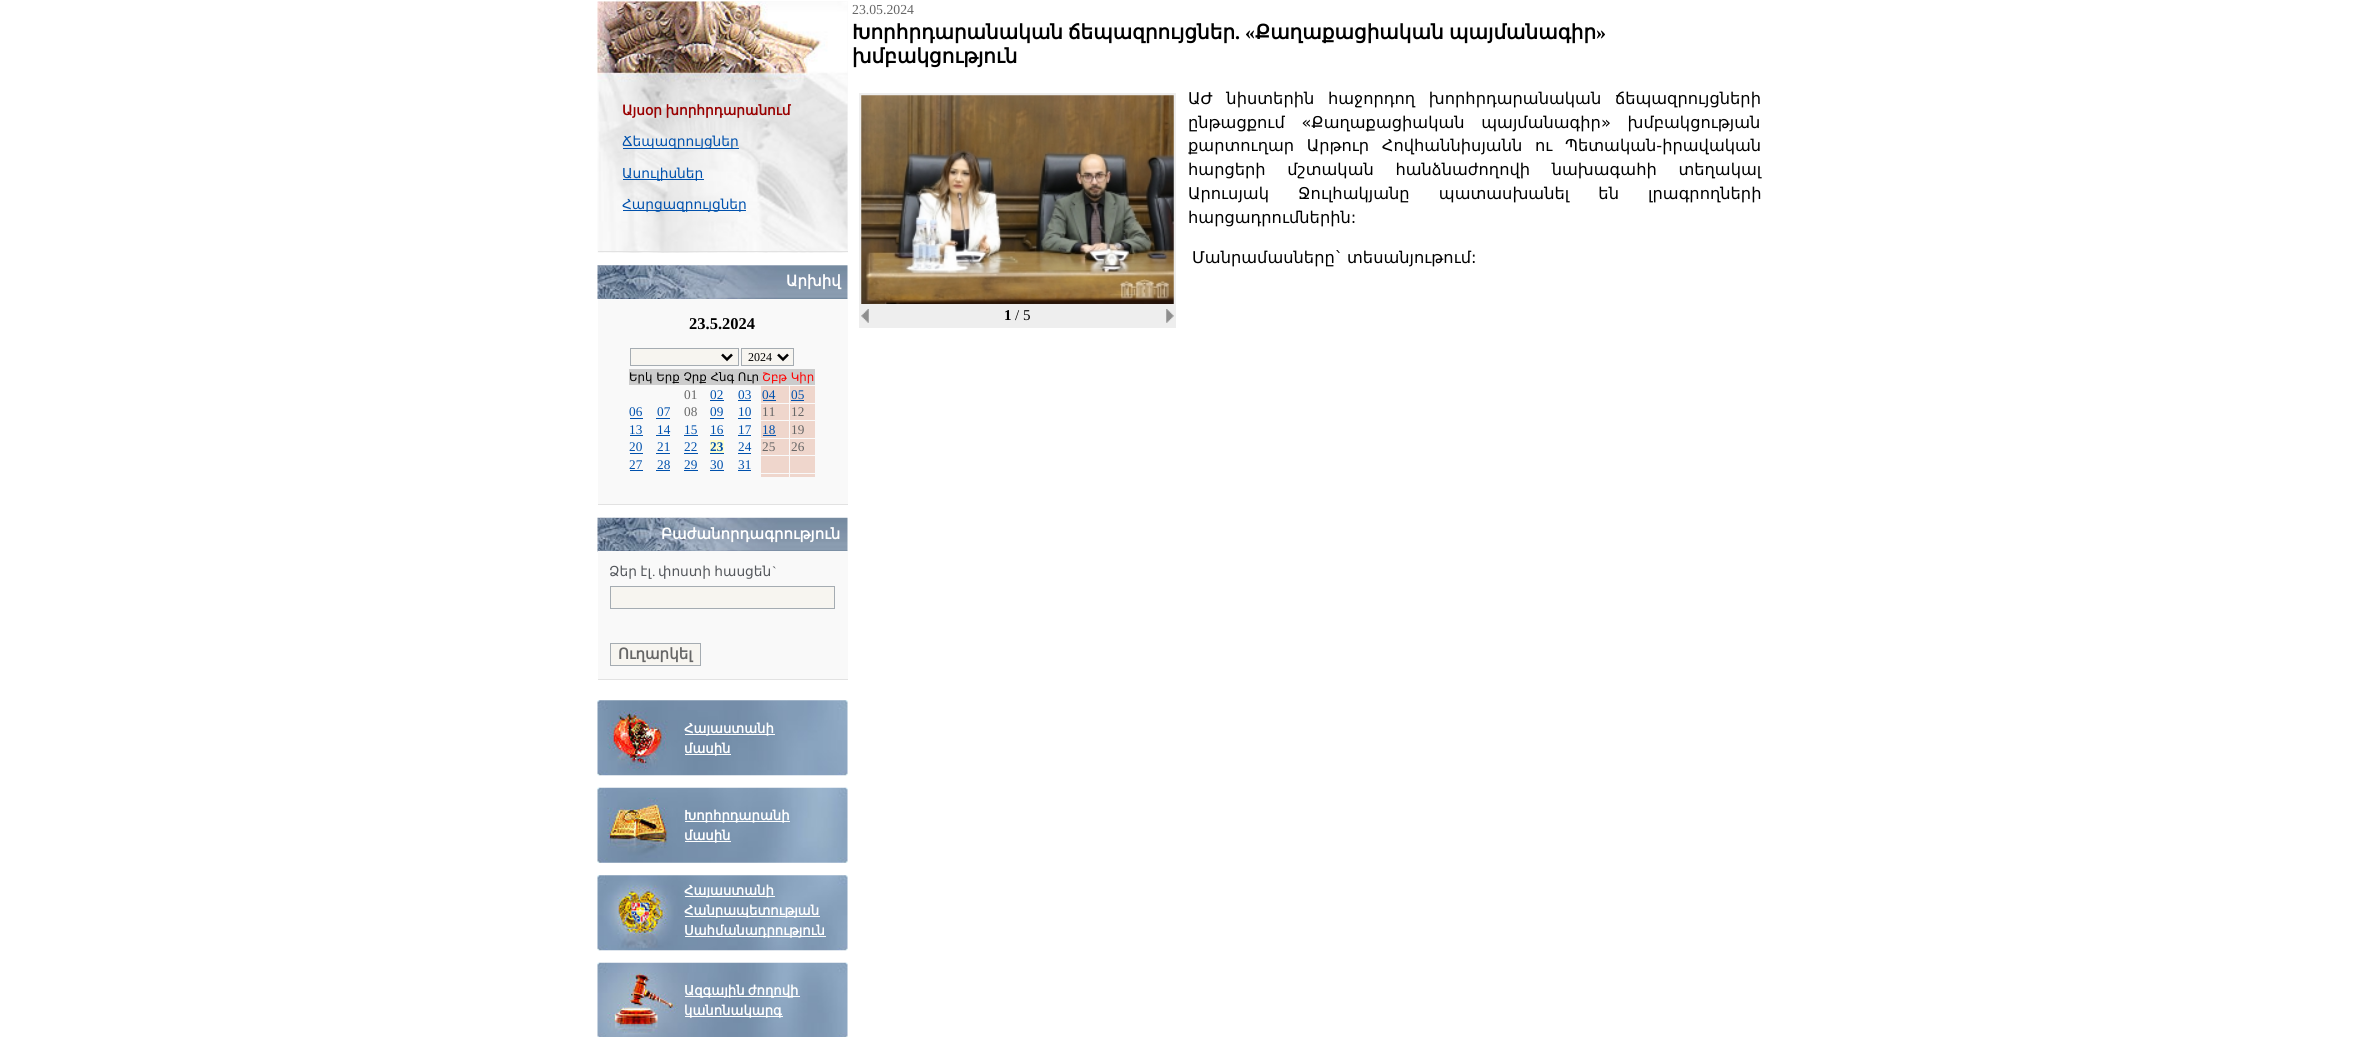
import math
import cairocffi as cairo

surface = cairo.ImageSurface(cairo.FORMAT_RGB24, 2357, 1037)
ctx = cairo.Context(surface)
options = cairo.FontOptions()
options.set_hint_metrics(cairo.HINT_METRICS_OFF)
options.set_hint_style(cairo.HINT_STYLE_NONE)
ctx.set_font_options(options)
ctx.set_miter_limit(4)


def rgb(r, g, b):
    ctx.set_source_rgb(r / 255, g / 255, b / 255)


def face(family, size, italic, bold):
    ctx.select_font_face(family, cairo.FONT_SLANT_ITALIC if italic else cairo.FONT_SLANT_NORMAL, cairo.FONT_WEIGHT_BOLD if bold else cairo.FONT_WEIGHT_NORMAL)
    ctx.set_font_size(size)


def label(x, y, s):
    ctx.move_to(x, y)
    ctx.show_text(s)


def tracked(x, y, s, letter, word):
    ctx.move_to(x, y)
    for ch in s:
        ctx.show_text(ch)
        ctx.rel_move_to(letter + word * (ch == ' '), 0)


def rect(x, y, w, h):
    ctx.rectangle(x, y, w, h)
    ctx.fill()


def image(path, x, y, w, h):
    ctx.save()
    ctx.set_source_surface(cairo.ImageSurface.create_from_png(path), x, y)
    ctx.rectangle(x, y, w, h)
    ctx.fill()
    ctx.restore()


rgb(255, 255, 255)
ctx.paint()
image('image0.png', 616, 0, 15, 1)
rgb(249, 249, 249)
rect(598, 1, 250, 252)
image('image1.png', 597, 1, 251, 252)
rgb(226, 226, 226)
rect(598, 251, 250, 1)
face('DejaVu Sans', 13.75, 0, 1)
rgb(153, 0, 0)
tracked(622, 115, 'Այսօր խորհրդարանում', 0, -1)
rgb(0, 81, 173)
rect(623, 148, 116, 1)
face('DejaVu Sans', 13.75, 0, 0)
label(622, 146, 'Ճեպազրույցներ')
rect(623, 179, 81, 1)
label(622, 178, 'Ասուլիսներ')
rect(623, 210, 123, 1)
label(622, 209, 'Հարցազրույցներ')
image('image2.png', 597, 265, 251, 34)
face('DejaVu Sans', 15, 0, 1)
rgb(255, 255, 255)
label(786, 286, 'Արխիվ')
rgb(249, 249, 249)
rect(598, 299, 250, 205)
rgb(226, 226, 226)
rect(598, 504, 250, 1)
face('Liberation Serif', 16.5, 0, 1)
rgb(0, 0, 0)
label(689, 329, '23.5.2024')
rgb(247, 245, 240)
ctx.rectangle(630.5, 348.5, 108, 17)
ctx.fill_preserve()
rgb(165, 172, 178)
ctx.set_line_width(1)
ctx.stroke()
ctx.new_path()
ctx.move_to(722, 354.5)
ctx.line_to(727, 359.5)
ctx.line_to(732, 354.5)
rgb(0, 0, 0)
ctx.set_line_width(2.5)
ctx.stroke()
rgb(247, 245, 240)
ctx.rectangle(741.5, 348.5, 52, 17)
ctx.fill_preserve()
rgb(165, 172, 178)
ctx.set_line_width(1)
ctx.stroke()
ctx.new_path()
ctx.move_to(778, 354.5)
ctx.line_to(783, 359.5)
ctx.line_to(788, 354.5)
rgb(0, 0, 0)
ctx.set_line_width(2.5)
ctx.stroke()
face('Liberation Serif', 12, 0, 0)
label(748, 361, '2024')
rgb(204, 204, 204)
rect(629, 369, 186, 16)
face('DejaVu Sans', 11.75, 0, 0)
rgb(0, 0, 0)
label(629, 381, 'Երկ Երք Չրք Հնգ Ուր')
rgb(255, 0, 0)
label(762, 381, 'Շբթ Կիր')
face('Liberation Serif', 13.25, 0, 0)
rgb(102, 102, 102)
label(684, 399, '01')
rgb(0, 81, 173)
label(710, 399, '02')
rect(710, 400, 14, 1)
label(738, 399, '03')
rect(738, 400, 13, 1)
rgb(239, 214, 204)
rect(761, 386, 28, 17)
rgb(0, 81, 173)
label(762, 399, '04')
rect(763, 400, 13, 1)
rgb(239, 214, 204)
rect(790, 386, 25, 17)
rgb(0, 81, 173)
label(791, 399, '05')
rect(791, 400, 13, 1)
label(629, 416, '06')
rect(630, 418, 13, 1)
label(657, 416, '07')
rect(656, 418, 14, 1)
rgb(102, 102, 102)
label(684, 416, '08')
rgb(0, 81, 173)
label(710, 416, '09')
rect(710, 418, 14, 1)
label(738, 416, '10')
rect(738, 418, 13, 1)
rgb(239, 214, 204)
rect(761, 404, 28, 16)
rgb(102, 102, 102)
label(762, 416, '11')
rgb(239, 214, 204)
rect(790, 404, 25, 16)
rgb(102, 102, 102)
label(791, 416, '12')
rgb(0, 81, 173)
label(629, 434, '13')
rect(630, 435, 13, 1)
label(657, 434, '14')
rect(656, 435, 14, 1)
label(684, 434, '15')
rect(684, 435, 14, 1)
label(710, 434, '16')
rect(710, 435, 14, 1)
label(738, 434, '17')
rect(738, 435, 13, 1)
rgb(239, 214, 204)
rect(761, 421, 28, 17)
rgb(0, 81, 173)
label(762, 434, '18')
rect(763, 435, 13, 1)
rgb(239, 214, 204)
rect(790, 421, 25, 17)
rgb(102, 102, 102)
label(791, 434, '19')
rgb(0, 81, 173)
label(629, 451, '20')
rect(630, 453, 13, 1)
label(657, 451, '21')
rect(656, 453, 14, 1)
label(684, 451, '22')
rect(684, 453, 14, 1)
rgb(255, 255, 204)
rect(710, 440, 14, 13)
face('Liberation Serif', 13.25, 0, 1)
rgb(0, 81, 173)
label(710, 451, '23')
rect(710, 453, 14, 1)
face('Liberation Serif', 13.25, 0, 0)
label(738, 451, '24')
rect(738, 453, 13, 1)
rgb(239, 214, 204)
rect(761, 439, 28, 16)
rgb(102, 102, 102)
label(762, 451, '25')
rgb(239, 214, 204)
rect(790, 439, 25, 16)
rgb(102, 102, 102)
label(791, 451, '26')
rgb(0, 81, 173)
label(629, 469, '27')
rect(630, 470, 13, 1)
label(657, 469, '28')
rect(656, 470, 14, 1)
label(684, 469, '29')
rect(684, 470, 14, 1)
label(710, 469, '30')
rect(710, 470, 14, 1)
label(738, 469, '31')
rect(738, 470, 13, 1)
rgb(239, 214, 204)
rect(761, 456, 28, 17)
rect(790, 456, 25, 17)
rect(761, 474, 28, 3)
rect(790, 474, 25, 3)
image('image3.png', 597, 517, 251, 35)
face('DejaVu Sans', 15, 0, 1)
rgb(255, 255, 255)
label(661, 539, 'Բաժանորդագրություն')
rgb(249, 249, 249)
rect(598, 551, 250, 128)
rgb(226, 226, 226)
rect(598, 679, 250, 1)
face('DejaVu Sans', 13.75, 0, 0)
rgb(84, 87, 92)
tracked(609, 576, 'Ձեր էլ', 0, -1)
tracked(658, 576, 'փոստի հասցեն', 0, -1)
face('Liberation Serif', 13.75, 0, 0)
label(772, 576, '`')
label(652, 576, '.')
rgb(247, 245, 240)
ctx.rectangle(610.5, 586.5, 224, 22)
ctx.fill_preserve()
rgb(165, 172, 178)
ctx.set_line_width(1)
ctx.stroke()
rgb(247, 245, 240)
ctx.rectangle(610.5, 643.5, 90, 22)
ctx.fill_preserve()
rgb(165, 172, 178)
ctx.stroke()
face('DejaVu Sans', 15, 0, 1)
rgb(102, 102, 102)
label(618, 659, 'Ուղարկել')
image('image4.png', 597, 700, 251, 76)
rgb(255, 255, 255)
rect(685, 734, 90, 1)
face('DejaVu Sans', 13.25, 0, 1)
label(684, 733, 'Հայաստանի')
rect(685, 754, 46, 1)
label(684, 753, 'մասին')
image('image5.png', 597, 787, 251, 76)
rect(685, 821, 105, 1)
label(684, 820, 'Խորհրդարանի')
rect(685, 841, 46, 1)
label(684, 840, 'մասին')
image('image6.png', 597, 875, 251, 76)
rect(685, 896, 90, 1)
label(684, 895, 'Հայաստանի')
rect(685, 916, 135, 1)
label(684, 915, 'Հանրապետության')
rect(685, 936, 141, 1)
label(684, 935, 'Սահմանադրություն')
image('image7.png', 597, 962, 251, 75)
rect(685, 996, 115, 1)
tracked(684, 995, 'Ազգային ժողովի', 0, -1)
rect(685, 1016, 98, 1)
label(684, 1015, 'կանոնակարգ')
face('Liberation Serif', 13.75, 0, 0)
rgb(102, 102, 102)
label(852, 14, '23.05.2024')
face('DejaVu Sans', 20, 0, 1)
rgb(0, 0, 0)
label(852, 39, 'Խորհրդարանական')
label(1068, 39, 'ճեպազրույցներ')
face('Liberation Serif', 20, 0, 1)
label(1235, 39, '. «')
face('DejaVu Sans', 20, 0, 1)
label(1255, 39, 'Քաղաքացիական')
label(1449, 39, 'պայմանագիր')
face('Liberation Serif', 20, 0, 1)
label(1596, 39, '»')
face('DejaVu Sans', 20, 0, 1)
label(852, 63, 'խմբակցություն')
face('DejaVu Sans', 16.25, 0, 0)
tracked(1188, 104, 'ԱԺ նիստերին հաջորդող խորհրդարանական ճեպազրույցների', 0, 8.5)
tracked(1188, 128, 'ընթացքում «Քաղաքացիական պայմանագիր» խմբակցության', 0, 11.5)
tracked(1188, 151, 'քարտուղար Արթուր Հովհաննիսյանն ու Պետական-իրավական', 0, 7.5)
tracked(1188, 175, 'հարցերի մշտական հանձնաժողովի նախագահի տեղակալ', 0, 16.5)
tracked(1188, 199, 'Արուսյակ Ջուլհակյանը պատասխանել են լրագրողների', 0, 24)
label(1188, 223, 'հարցադրումներին:')
tracked(1192, 263, 'Մանրամասները` տեսանյութում:', 0, -1)
rgb(238, 238, 238)
rect(859, 93, 317, 235)
image('image8.png', 861, 95, 313, 209)
image('image9.png', 861, 309, 8, 14)
face('Liberation Serif', 15, 0, 1)
rgb(0, 0, 0)
label(1004, 320, '1')
face('Liberation Serif', 15, 0, 0)
label(1015, 320, '/ 5')
image('image10.png', 1166, 309, 8, 14)
surface.write_to_png('render.png')
